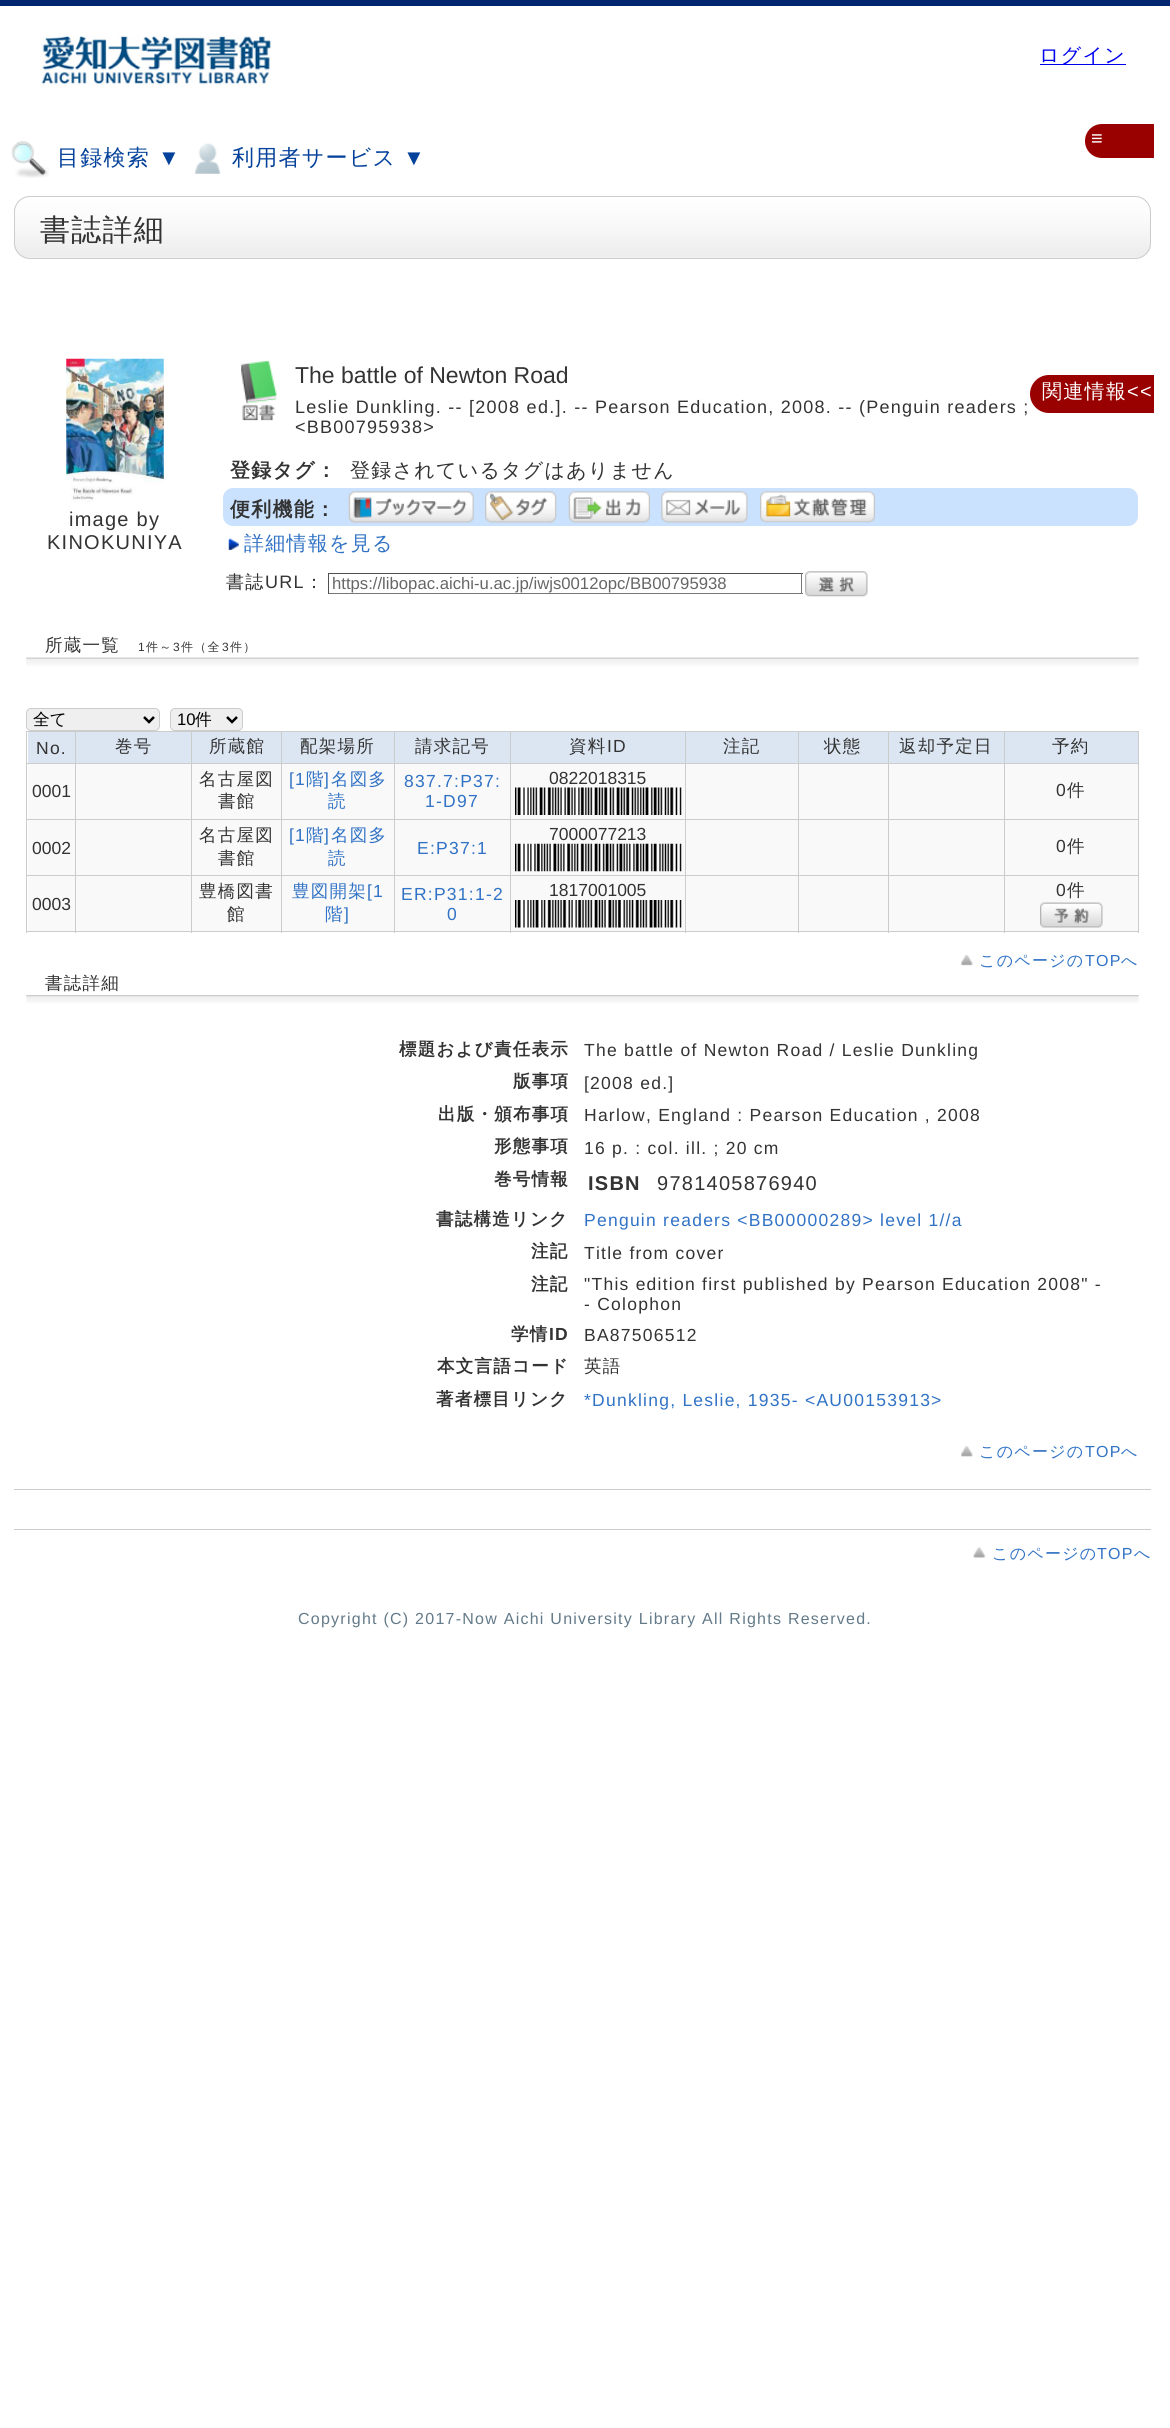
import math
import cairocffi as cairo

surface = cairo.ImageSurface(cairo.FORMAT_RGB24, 1170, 2428)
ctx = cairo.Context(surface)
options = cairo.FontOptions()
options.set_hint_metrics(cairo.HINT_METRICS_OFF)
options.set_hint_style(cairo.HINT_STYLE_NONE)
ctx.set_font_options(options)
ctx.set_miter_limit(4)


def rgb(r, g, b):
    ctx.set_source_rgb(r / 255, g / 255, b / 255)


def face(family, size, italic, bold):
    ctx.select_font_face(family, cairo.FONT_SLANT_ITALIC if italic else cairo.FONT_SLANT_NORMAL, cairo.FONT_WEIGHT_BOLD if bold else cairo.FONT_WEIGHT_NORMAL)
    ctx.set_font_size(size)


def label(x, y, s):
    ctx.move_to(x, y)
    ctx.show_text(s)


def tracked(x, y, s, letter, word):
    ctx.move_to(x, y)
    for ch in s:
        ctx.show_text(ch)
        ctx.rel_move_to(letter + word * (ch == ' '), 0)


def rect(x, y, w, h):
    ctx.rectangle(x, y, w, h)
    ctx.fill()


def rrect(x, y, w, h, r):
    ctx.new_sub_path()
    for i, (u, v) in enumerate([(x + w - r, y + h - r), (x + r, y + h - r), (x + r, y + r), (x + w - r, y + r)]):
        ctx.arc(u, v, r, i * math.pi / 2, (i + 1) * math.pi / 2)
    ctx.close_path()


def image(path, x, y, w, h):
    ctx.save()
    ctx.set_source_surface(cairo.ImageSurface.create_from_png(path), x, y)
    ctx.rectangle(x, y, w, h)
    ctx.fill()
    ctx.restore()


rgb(255, 255, 255)
ctx.paint()
rgb(0, 38, 111)
rect(0, 0, 1170, 6)
image('image0.png', 41, 35, 230, 52)
rgb(0, 0, 238)
rect(1040, 64, 86, 1)
face('WenQuanYi Zen Hei Medium', 20, 0, 0)
tracked(1039, 62, 'ログイン', 1.25, 0)
rgb(153, 0, 0)
ctx.new_path()
ctx.move_to(1102, 124)
ctx.line_to(1154, 124)
ctx.line_to(1154, 158)
ctx.line_to(1102, 158)
ctx.curve_to(1092.5, 158, 1085, 150.5, 1085, 141)
ctx.curve_to(1085, 131.5, 1092.5, 124, 1102, 124)
ctx.close_path()
ctx.fill()
face('Liberation Sans', 20, 0, 0)
rgb(255, 255, 255)
tracked(1091, 145, '≡', 1.25, 0)
image('image1.png', 11, 141, 38, 37)
face('WenQuanYi Zen Hei Medium', 22, 0, 0)
rgb(4, 65, 154)
tracked(57, 165, '目録検索', 1.25, 0)
face('Liberation Sans', 22, 0, 0)
tracked(158, 165, '▼', 1.25, 0)
image('image2.png', 195, 143, 26, 31)
face('WenQuanYi Zen Hei Medium', 22, 0, 0)
tracked(232, 165, '利用者サービス', 1.25, 0)
face('Liberation Sans', 22, 0, 0)
tracked(403, 165, '▼', 1.25, 0)
rgb(246, 246, 246)
rrect(14, 196, 1137, 63, 16)
ctx.fill()
image('image3.png', 14, 196, 1137, 62)
rrect(14.5, 196.5, 1136, 62, 15.5)
rgb(204, 204, 204)
ctx.set_line_width(1)
ctx.stroke()
face('WenQuanYi Zen Hei Medium', 30, 0, 0)
rgb(51, 51, 51)
tracked(40, 240, '書誌詳細', 1.25, 0)
image('image4.png', 66, 358, 98, 144)
face('Liberation Sans', 20, 0, 0)
tracked(69, 526, 'image by', 1.25, 0)
tracked(47, 549, 'KINOKUNIYA', 1.25, 0)
image('image5.png', 241, 361, 36, 60)
face('Liberation Sans', 23, 0, 0)
label(295, 383, 'The battle of Newton Road')
face('Liberation Sans', 18, 0, 0)
tracked(295, 413, 'Leslie Dunkling. -- [2008 ed.]. -- Pearson Education, 2008. -- (Penguin readers ;', 1.25, 0)
tracked(295, 433, '<BB00795938>', 1.25, 0)
face('WenQuanYi Zen Hei', 20, 0, 1)
tracked(230, 477, '登録タグ：', 1.25, 0)
face('WenQuanYi Zen Hei Medium', 20, 0, 0)
tracked(350, 477, '登録されているタグはありません', 1.25, 0)
rgb(203, 226, 255)
rrect(223, 488, 915, 38, 10)
ctx.fill()
face('WenQuanYi Zen Hei', 20, 0, 1)
rgb(51, 51, 51)
tracked(230, 516, '便利機能：', 1.25, 0)
image('image6.png', 348, 491, 126, 32)
image('image7.png', 485, 491, 72, 32)
image('image8.png', 568, 491, 82, 32)
image('image9.png', 661, 491, 87, 32)
image('image10.png', 760, 491, 115, 32)
image('image11.png', 228, 538, 11, 12)
face('WenQuanYi Zen Hei Medium', 20, 0, 0)
rgb(48, 114, 197)
tracked(244, 550, '詳細情報を見る', 1.25, 0)
face('WenQuanYi Zen Hei Medium', 18, 0, 0)
rgb(51, 51, 51)
tracked(226, 588, '書誌', 1.25, 0)
face('Liberation Sans', 18, 0, 0)
tracked(265, 588, 'URL', 1.25, 0)
face('WenQuanYi Zen Hei Medium', 18, 0, 0)
tracked(305, 588, '：', 1.25, 0)
rgb(79, 79, 79)
rect(328, 573, 475, 1)
rgb(118, 118, 118)
rect(801, 573, 1, 21)
rect(328, 593, 475, 1)
rgb(79, 79, 79)
rect(328, 573, 1, 21)
face('Liberation Sans', 16.7, 0, 0)
rgb(102, 102, 102)
label(332, 589, 'https://libopac.aichi-u.ac.jp/iwjs0012opc/BB00795938')
image('image12.png', 805, 571, 63, 26)
image('image13.png', 26, 657, 1113, 9)
face('WenQuanYi Zen Hei Medium', 17.5, 0, 0)
rgb(51, 51, 51)
tracked(45, 651, '所蔵一覧', 1.25, 0)
face('Liberation Sans', 12, 0, 0)
tracked(138, 651, '1', 1.25, 0)
face('WenQuanYi Zen Hei Medium', 12, 0, 0)
tracked(146, 651, '件～', 1.25, 0)
face('Liberation Sans', 12, 0, 0)
tracked(173, 651, '3', 1.25, 0)
face('WenQuanYi Zen Hei Medium', 12, 0, 0)
tracked(181, 651, '件（全', 1.25, 0)
face('Liberation Sans', 12, 0, 0)
tracked(222, 651, '3', 1.25, 0)
face('WenQuanYi Zen Hei Medium', 12, 0, 0)
tracked(230, 651, '件）', 1.25, 0)
rgb(239, 239, 239)
rrect(26.5, 708.5, 133, 22, 4.5)
ctx.fill_preserve()
rgb(204, 204, 204)
ctx.stroke()
ctx.new_path()
ctx.move_to(144, 717)
ctx.line_to(149, 722)
ctx.line_to(154, 717)
rgb(0, 0, 0)
ctx.set_line_width(2.5)
ctx.stroke()
face('WenQuanYi Zen Hei Medium', 16.7, 0, 0)
label(33, 725, '全て')
rgb(239, 239, 239)
rrect(170.5, 708.5, 72, 22, 4.5)
ctx.fill_preserve()
rgb(204, 204, 204)
ctx.set_line_width(1)
ctx.stroke()
ctx.new_path()
ctx.move_to(227, 717)
ctx.line_to(232, 722)
ctx.line_to(237, 717)
rgb(0, 0, 0)
ctx.set_line_width(2.5)
ctx.stroke()
face('Liberation Sans', 16.7, 0, 0)
label(177, 725, '10')
face('WenQuanYi Zen Hei Medium', 16.7, 0, 0)
label(195, 725, '件')
rgb(204, 204, 204)
rect(26, 731, 1113, 1)
rect(1138, 731, 1, 202)
rect(26, 931, 1113, 1)
rect(26, 731, 1, 202)
rgb(220, 230, 242)
rect(28, 732, 47, 31)
face('Liberation Sans', 17.5, 0, 0)
rgb(51, 51, 51)
tracked(36, 754, 'No.', 1.25, 0)
rgb(220, 230, 242)
rect(76, 732, 205, 31)
rgb(204, 204, 204)
rect(1004, 763, 135, 1)
rect(1004, 819, 135, 1)
rect(1004, 875, 135, 1)
rect(1004, 875, 1, 58)
rect(888, 875, 117, 1)
rect(1004, 819, 1, 57)
rect(888, 819, 117, 1)
rect(1004, 763, 1, 57)
rect(888, 763, 117, 1)
rect(888, 875, 1, 58)
rect(798, 875, 91, 1)
rect(888, 819, 1, 57)
rect(798, 819, 91, 1)
rect(888, 763, 1, 57)
rect(798, 763, 91, 1)
rect(798, 875, 1, 58)
rect(685, 875, 114, 1)
rect(798, 819, 1, 57)
rect(685, 819, 114, 1)
rect(798, 763, 1, 57)
rect(685, 763, 114, 1)
rect(685, 875, 1, 58)
rect(510, 875, 176, 1)
rect(685, 819, 1, 57)
rect(510, 819, 176, 1)
rect(685, 763, 1, 57)
rect(510, 763, 176, 1)
rect(510, 875, 1, 58)
rect(394, 875, 117, 1)
rect(510, 819, 1, 57)
rect(394, 819, 117, 1)
rect(510, 763, 1, 57)
rect(394, 763, 117, 1)
rect(394, 875, 1, 58)
rect(281, 875, 114, 1)
rect(394, 819, 1, 57)
rect(281, 819, 114, 1)
rect(394, 763, 1, 57)
rect(281, 763, 114, 1)
rect(281, 875, 1, 58)
rect(191, 875, 92, 1)
rect(281, 819, 1, 57)
rect(191, 819, 92, 1)
rect(281, 763, 1, 57)
rect(191, 763, 92, 1)
rgb(249, 249, 249)
rect(76, 764, 205, 55)
rect(76, 820, 205, 55)
rect(76, 876, 205, 55)
rgb(204, 204, 204)
rect(191, 875, 1, 58)
rect(75, 875, 118, 1)
rect(191, 819, 1, 57)
rect(75, 819, 118, 1)
rect(191, 763, 1, 57)
rect(75, 763, 118, 1)
rect(75, 875, 1, 58)
rect(26, 875, 50, 1)
rect(75, 819, 1, 57)
rect(26, 819, 50, 1)
rect(75, 763, 1, 57)
rect(26, 763, 50, 1)
rect(75, 731, 1, 33)
face('WenQuanYi Zen Hei Medium', 17.5, 0, 0)
rgb(51, 51, 51)
tracked(115, 752, '巻号', 1.25, 0)
rgb(204, 204, 204)
rect(191, 731, 1, 33)
rgb(51, 51, 51)
tracked(209, 752, '所蔵館', 1.25, 0)
rgb(220, 230, 242)
rect(282, 732, 112, 31)
rgb(204, 204, 204)
rect(281, 731, 1, 33)
rgb(51, 51, 51)
tracked(300, 752, '配架場所', 1.25, 0)
rgb(220, 230, 242)
rect(395, 732, 115, 31)
rgb(204, 204, 204)
rect(394, 731, 1, 33)
rgb(51, 51, 51)
tracked(415, 752, '請求記号', 1.25, 0)
rgb(220, 230, 242)
rect(511, 732, 174, 31)
rgb(204, 204, 204)
rect(510, 731, 1, 33)
rgb(51, 51, 51)
tracked(569, 752, '資料', 1.25, 0)
face('Liberation Sans', 17.5, 0, 0)
tracked(607, 752, 'ID', 1.25, 0)
rgb(220, 230, 242)
rect(686, 732, 112, 31)
rgb(204, 204, 204)
rect(685, 731, 1, 33)
face('WenQuanYi Zen Hei Medium', 17.5, 0, 0)
rgb(51, 51, 51)
tracked(723, 752, '注記', 1.25, 0)
rgb(220, 230, 242)
rect(799, 732, 89, 31)
rgb(204, 204, 204)
rect(798, 731, 1, 33)
rgb(51, 51, 51)
tracked(824, 752, '状態', 1.25, 0)
rgb(220, 230, 242)
rect(889, 732, 115, 31)
rgb(204, 204, 204)
rect(888, 731, 1, 33)
rgb(51, 51, 51)
tracked(899, 752, '返却予定日', 1.25, 0)
rgb(220, 230, 242)
rect(1005, 732, 133, 31)
rgb(204, 204, 204)
rect(1004, 731, 1, 33)
rgb(51, 51, 51)
tracked(1052, 752, '予約', 1.25, 0)
rgb(249, 249, 249)
rect(686, 764, 112, 55)
rect(799, 764, 89, 55)
rect(889, 764, 115, 55)
rect(28, 764, 47, 55)
face('Liberation Sans', 17.5, 0, 0)
rgb(51, 51, 51)
label(32, 797, '0001')
face('WenQuanYi Zen Hei Medium', 17.5, 0, 0)
tracked(199, 785, '名古屋図', 1.25, 0)
tracked(218, 807, '書館', 1.25, 0)
rgb(249, 249, 249)
rect(282, 764, 112, 55)
face('Liberation Sans', 17.5, 0, 0)
rgb(48, 114, 197)
tracked(289, 785, '[1', 1.25, 0)
face('WenQuanYi Zen Hei Medium', 17.5, 0, 0)
tracked(306, 785, '階', 1.25, 0)
face('Liberation Sans', 17.5, 0, 0)
tracked(324, 785, ']', 1.25, 0)
face('WenQuanYi Zen Hei Medium', 17.5, 0, 0)
tracked(331, 785, '名図多', 1.25, 0)
tracked(328, 807, '読', 1.25, 0)
rgb(249, 249, 249)
rect(395, 764, 115, 55)
face('Liberation Sans', 17.5, 0, 0)
rgb(48, 114, 197)
tracked(404, 787, '837.7:P37:', 1.25, 0)
tracked(425, 807, '1-D97', 1.25, 0)
rgb(249, 249, 249)
rect(511, 764, 174, 55)
rgb(51, 51, 51)
label(549, 784, '0822018315')
image('image14.png', 515, 787, 167, 28)
rgb(249, 249, 249)
rect(1005, 764, 133, 55)
rgb(51, 51, 51)
tracked(1056, 796, '0', 1.25, 0)
face('WenQuanYi Zen Hei Medium', 17.5, 0, 0)
tracked(1067, 796, '件', 1.25, 0)
rgb(249, 249, 249)
rect(686, 820, 112, 55)
rect(799, 820, 89, 55)
rect(889, 820, 115, 55)
rgb(51, 51, 51)
tracked(199, 841, '名古屋図', 1.25, 0)
tracked(218, 864, '書館', 1.25, 0)
rgb(249, 249, 249)
rect(282, 820, 112, 55)
face('Liberation Sans', 17.5, 0, 0)
rgb(48, 114, 197)
tracked(289, 841, '[1', 1.25, 0)
face('WenQuanYi Zen Hei Medium', 17.5, 0, 0)
tracked(306, 841, '階', 1.25, 0)
face('Liberation Sans', 17.5, 0, 0)
tracked(324, 841, ']', 1.25, 0)
face('WenQuanYi Zen Hei Medium', 17.5, 0, 0)
tracked(331, 841, '名図多', 1.25, 0)
tracked(328, 864, '読', 1.25, 0)
rgb(249, 249, 249)
rect(511, 820, 174, 55)
face('Liberation Sans', 17.5, 0, 0)
rgb(51, 51, 51)
label(549, 840, '7000077213')
image('image15.png', 515, 843, 167, 29)
rgb(249, 249, 249)
rect(28, 820, 47, 55)
rgb(51, 51, 51)
label(32, 854, '0002')
rgb(249, 249, 249)
rect(395, 820, 115, 55)
rgb(48, 114, 197)
tracked(417, 854, 'E:P37:1', 1.25, 0)
rgb(249, 249, 249)
rect(1005, 820, 133, 55)
rgb(51, 51, 51)
tracked(1056, 852, '0', 1.25, 0)
face('WenQuanYi Zen Hei Medium', 17.5, 0, 0)
tracked(1067, 852, '件', 1.25, 0)
rgb(249, 249, 249)
rect(686, 876, 112, 55)
rect(799, 876, 89, 55)
rect(889, 876, 115, 55)
rect(28, 876, 47, 55)
face('Liberation Sans', 17.5, 0, 0)
rgb(51, 51, 51)
label(32, 910, '0003')
face('WenQuanYi Zen Hei Medium', 17.5, 0, 0)
tracked(199, 897, '豊橋図書', 1.25, 0)
tracked(227, 920, '館', 1.25, 0)
rgb(249, 249, 249)
rect(282, 876, 112, 55)
rgb(48, 114, 197)
tracked(292, 897, '豊図開架', 1.25, 0)
face('Liberation Sans', 17.5, 0, 0)
tracked(367, 897, '[1', 1.25, 0)
face('WenQuanYi Zen Hei Medium', 17.5, 0, 0)
tracked(325, 920, '階', 1.25, 0)
face('Liberation Sans', 17.5, 0, 0)
tracked(344, 920, ']', 1.25, 0)
rgb(249, 249, 249)
rect(395, 876, 115, 55)
rgb(48, 114, 197)
tracked(401, 900, 'ER:P31:1-2', 1.25, 0)
tracked(447, 920, '0', 1.25, 0)
rgb(249, 249, 249)
rect(511, 876, 174, 55)
rgb(51, 51, 51)
label(549, 896, '1817001005')
image('image16.png', 515, 900, 167, 28)
rgb(249, 249, 249)
rect(1005, 876, 133, 55)
rgb(51, 51, 51)
tracked(1056, 896, '0', 1.25, 0)
face('WenQuanYi Zen Hei Medium', 17.5, 0, 0)
tracked(1067, 896, '件', 1.25, 0)
image('image17.png', 1040, 902, 63, 26)
image('image18.png', 961, 955, 12, 11)
face('WenQuanYi Zen Hei Medium', 16, 0, 0)
rgb(48, 114, 197)
tracked(979, 966, 'このページの', 1.25, 0)
face('Liberation Sans', 16, 0, 0)
tracked(1085, 966, 'TOP', 1.25, 0)
face('WenQuanYi Zen Hei Medium', 16, 0, 0)
tracked(1121, 966, 'へ', 1.25, 0)
image('image19.png', 26, 995, 1113, 8)
face('WenQuanYi Zen Hei Medium', 17.5, 0, 0)
rgb(51, 51, 51)
tracked(45, 989, '書誌詳細', 1.25, 0)
face('WenQuanYi Zen Hei', 17.5, 0, 1)
tracked(399, 1055, '標題および責任表示', 1.25, 0)
face('Liberation Sans', 17.5, 0, 0)
tracked(584, 1056, 'The battle of Newton Road / Leslie Dunkling', 1.25, 0)
face('WenQuanYi Zen Hei', 17.5, 0, 1)
tracked(513, 1087, '版事項', 1.25, 0)
face('Liberation Sans', 17.5, 0, 0)
tracked(584, 1089, '[2008 ed.]', 1.25, 0)
face('WenQuanYi Zen Hei', 17.5, 0, 1)
tracked(438, 1120, '出版・頒布事項', 1.25, 0)
face('Liberation Sans', 17.5, 0, 0)
tracked(584, 1121, 'Harlow, England : Pearson Education , 2008', 1.25, 0)
face('WenQuanYi Zen Hei', 17.5, 0, 1)
tracked(494, 1152, '形態事項', 1.25, 0)
face('Liberation Sans', 17.5, 0, 0)
tracked(584, 1154, '16 p. : col. ill. ; 20 cm', 1.25, 0)
face('WenQuanYi Zen Hei', 17.5, 0, 1)
tracked(494, 1185, '巻号情報', 1.25, 0)
face('Liberation Sans', 20, 0, 1)
tracked(588, 1190, 'ISBN', 1.25, 0)
face('Liberation Sans', 20, 0, 0)
tracked(657, 1190, '9781405876940', 1.25, 0)
face('WenQuanYi Zen Hei', 17.5, 0, 1)
tracked(436, 1225, '書誌構造リンク', 1.25, 0)
face('Liberation Sans', 17.5, 0, 0)
rgb(48, 114, 197)
tracked(584, 1226, 'Penguin readers <BB00000289> level 1//a', 1.25, 0)
face('WenQuanYi Zen Hei', 17.5, 0, 1)
rgb(51, 51, 51)
tracked(531, 1257, '注記', 1.25, 0)
face('Liberation Sans', 17.5, 0, 0)
tracked(584, 1259, 'Title from cover', 1.25, 0)
face('WenQuanYi Zen Hei', 17.5, 0, 1)
tracked(531, 1290, '注記', 1.25, 0)
face('Liberation Sans', 17.5, 0, 0)
tracked(584, 1290, '"This edition first published by Pearson Education 2008" -', 1.25, 0)
tracked(584, 1310, '- Colophon', 1.25, 0)
face('WenQuanYi Zen Hei', 17.5, 0, 1)
tracked(511, 1340, '学情', 1.25, 0)
face('Liberation Sans', 17.5, 0, 1)
tracked(549, 1340, 'ID', 1.25, 0)
face('Liberation Sans', 17.5, 0, 0)
tracked(584, 1341, 'BA87506512', 1.25, 0)
face('WenQuanYi Zen Hei', 17.5, 0, 1)
tracked(437, 1372, '本文言語コード', 1.25, 0)
face('WenQuanYi Zen Hei Medium', 17.5, 0, 0)
tracked(584, 1372, '英語', 1.25, 0)
face('WenQuanYi Zen Hei', 17.5, 0, 1)
tracked(436, 1405, '著者標目リンク', 1.25, 0)
face('Liberation Sans', 17.5, 0, 0)
rgb(48, 114, 197)
tracked(584, 1406, '*Dunkling, Leslie, 1935- <AU00153913>', 1.25, 0)
image('image20.png', 961, 1446, 12, 11)
face('WenQuanYi Zen Hei Medium', 16, 0, 0)
tracked(979, 1457, 'このページの', 1.25, 0)
face('Liberation Sans', 16, 0, 0)
tracked(1085, 1457, 'TOP', 1.25, 0)
face('WenQuanYi Zen Hei Medium', 16, 0, 0)
tracked(1121, 1457, 'へ', 1.25, 0)
rgb(204, 204, 204)
rect(14, 1489, 1137, 1)
rect(14, 1529, 1137, 1)
image('image21.png', 973, 1547, 13, 11)
rgb(48, 114, 197)
tracked(992, 1559, 'このページの', 1.25, 0)
face('Liberation Sans', 16, 0, 0)
tracked(1097, 1559, 'TOP', 1.25, 0)
face('WenQuanYi Zen Hei Medium', 16, 0, 0)
tracked(1134, 1559, 'へ', 1.25, 0)
rgb(153, 0, 0)
ctx.new_path()
ctx.move_to(1049, 375)
ctx.line_to(1154, 375)
ctx.line_to(1154, 413)
ctx.line_to(1049, 413)
ctx.curve_to(1038.5, 413, 1030, 404.5, 1030, 394)
ctx.curve_to(1030, 383.5, 1038.5, 375, 1049, 375)
ctx.close_path()
ctx.fill()
face('WenQuanYi Zen Hei Medium', 20, 0, 0)
rgb(255, 255, 255)
tracked(1042, 398, '関連情報', 1.25, 0)
face('Liberation Sans', 20, 0, 0)
tracked(1127, 398, '<<', 1.25, 0)
face('Liberation Sans', 16, 0, 0)
rgb(99, 122, 137)
tracked(298, 1624, 'Copyright (C) 2017-Now Aichi University Library All Rights Reserved.', 1.25, 0)
surface.write_to_png('render.png')
